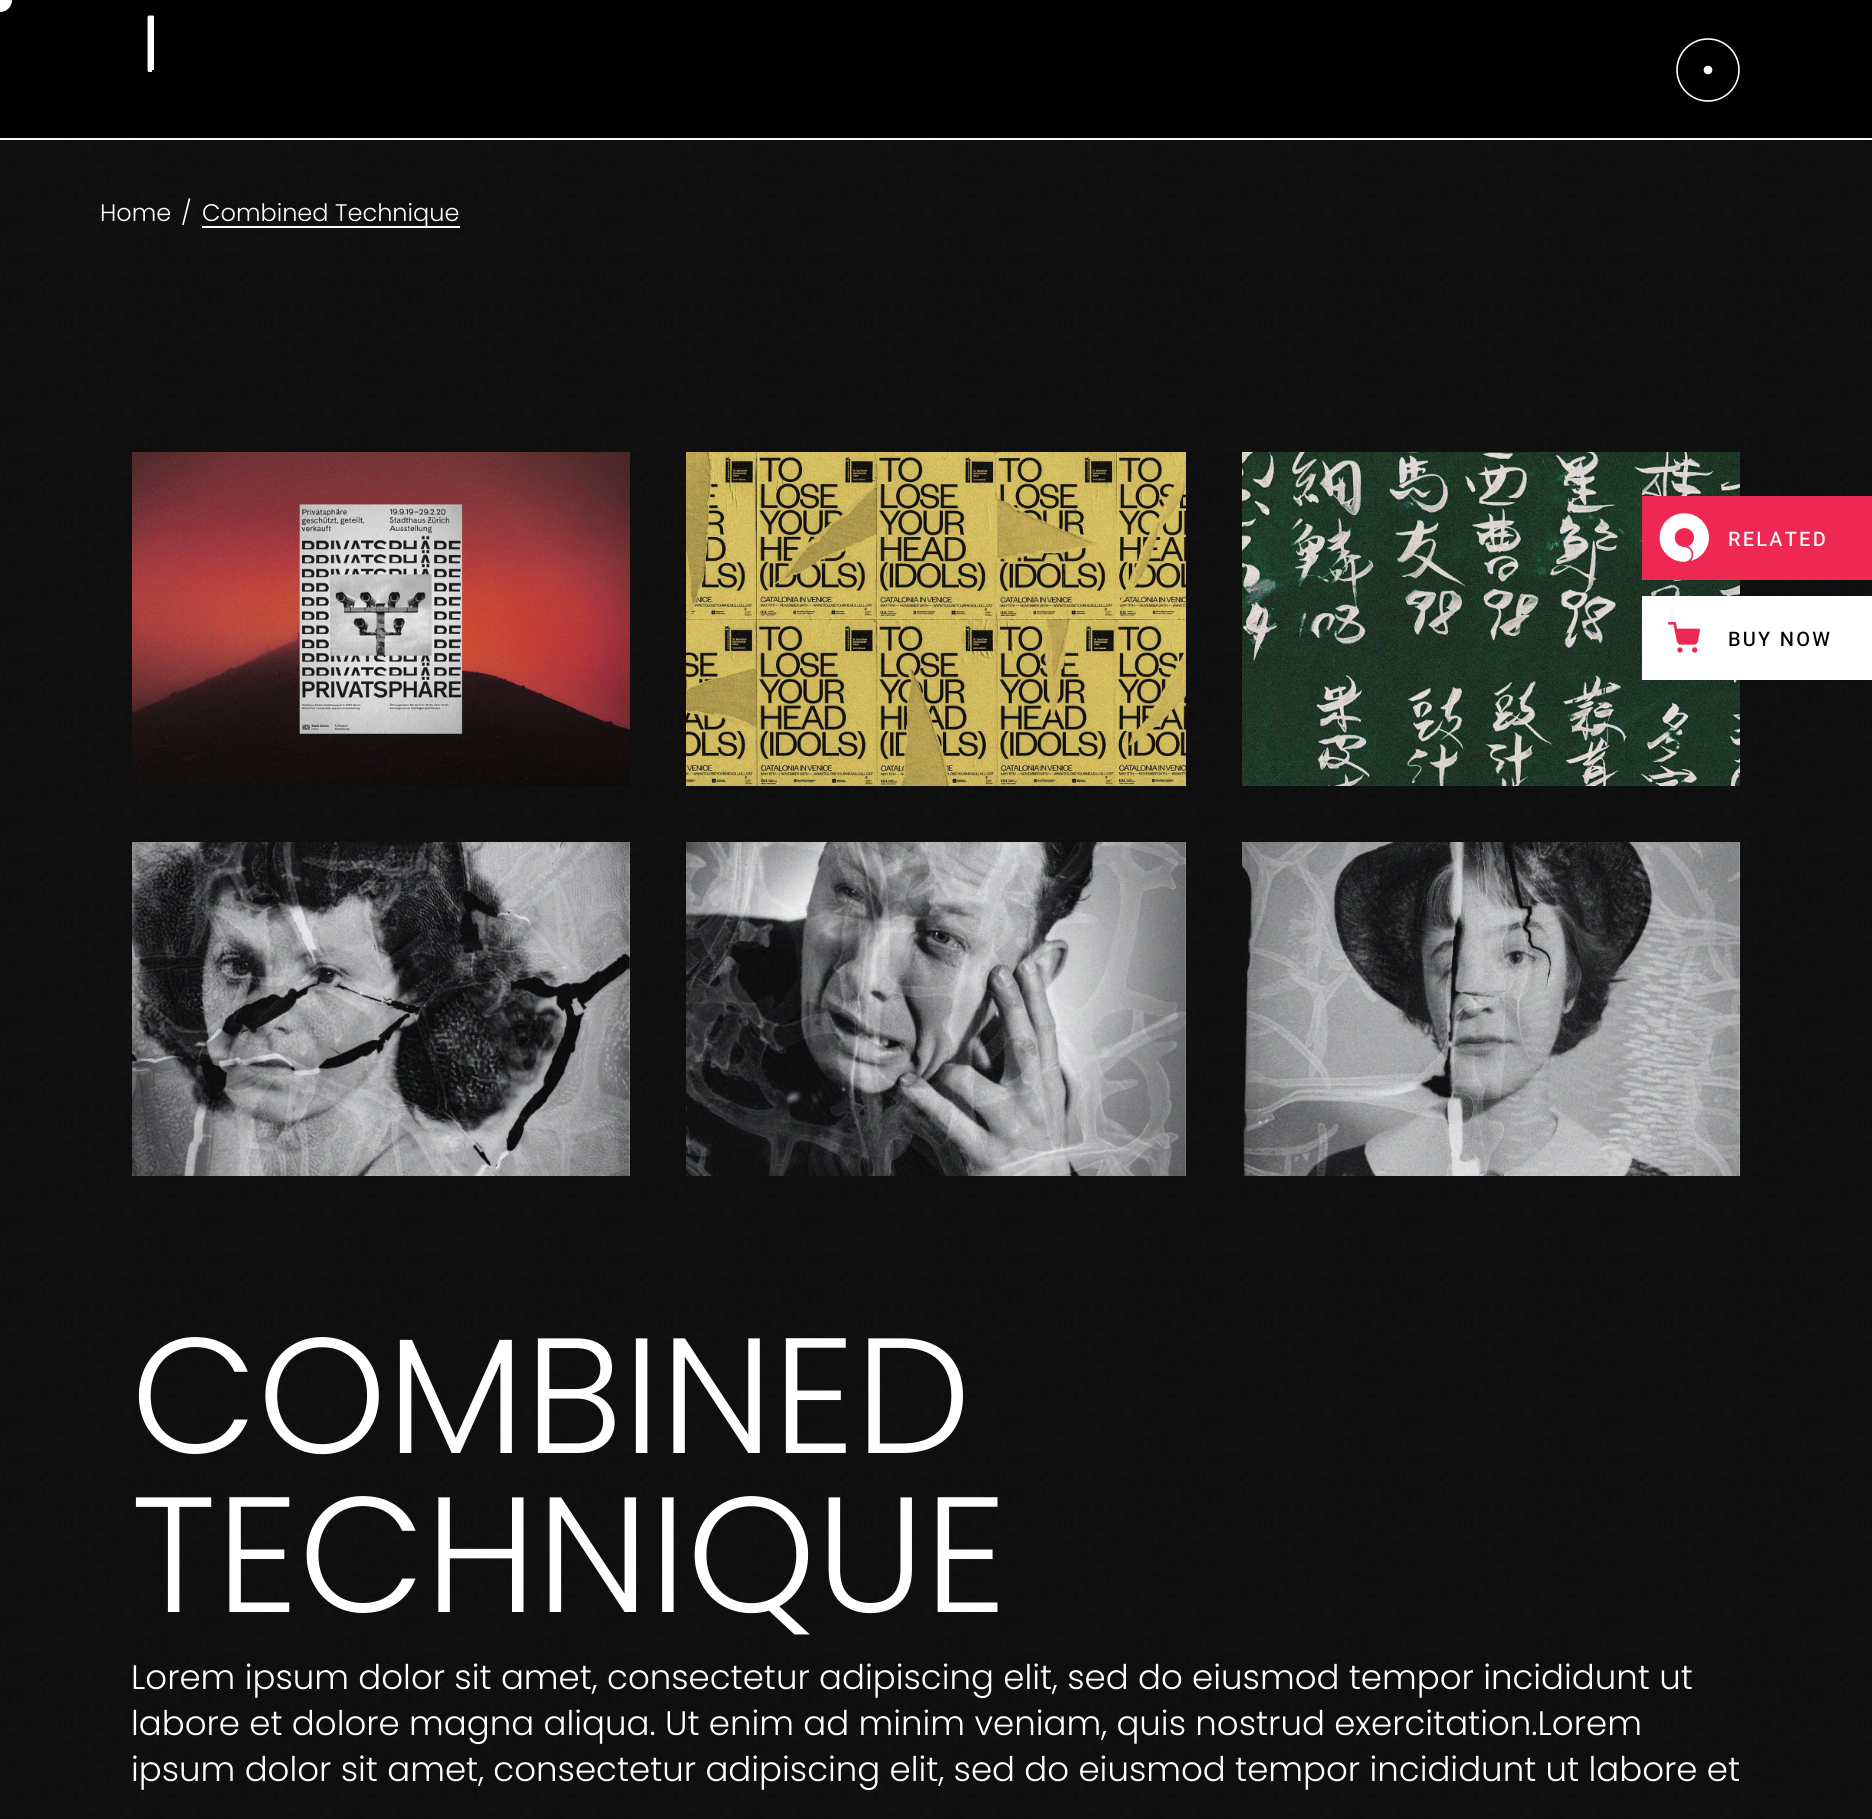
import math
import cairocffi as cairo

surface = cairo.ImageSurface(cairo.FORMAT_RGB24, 1872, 1819)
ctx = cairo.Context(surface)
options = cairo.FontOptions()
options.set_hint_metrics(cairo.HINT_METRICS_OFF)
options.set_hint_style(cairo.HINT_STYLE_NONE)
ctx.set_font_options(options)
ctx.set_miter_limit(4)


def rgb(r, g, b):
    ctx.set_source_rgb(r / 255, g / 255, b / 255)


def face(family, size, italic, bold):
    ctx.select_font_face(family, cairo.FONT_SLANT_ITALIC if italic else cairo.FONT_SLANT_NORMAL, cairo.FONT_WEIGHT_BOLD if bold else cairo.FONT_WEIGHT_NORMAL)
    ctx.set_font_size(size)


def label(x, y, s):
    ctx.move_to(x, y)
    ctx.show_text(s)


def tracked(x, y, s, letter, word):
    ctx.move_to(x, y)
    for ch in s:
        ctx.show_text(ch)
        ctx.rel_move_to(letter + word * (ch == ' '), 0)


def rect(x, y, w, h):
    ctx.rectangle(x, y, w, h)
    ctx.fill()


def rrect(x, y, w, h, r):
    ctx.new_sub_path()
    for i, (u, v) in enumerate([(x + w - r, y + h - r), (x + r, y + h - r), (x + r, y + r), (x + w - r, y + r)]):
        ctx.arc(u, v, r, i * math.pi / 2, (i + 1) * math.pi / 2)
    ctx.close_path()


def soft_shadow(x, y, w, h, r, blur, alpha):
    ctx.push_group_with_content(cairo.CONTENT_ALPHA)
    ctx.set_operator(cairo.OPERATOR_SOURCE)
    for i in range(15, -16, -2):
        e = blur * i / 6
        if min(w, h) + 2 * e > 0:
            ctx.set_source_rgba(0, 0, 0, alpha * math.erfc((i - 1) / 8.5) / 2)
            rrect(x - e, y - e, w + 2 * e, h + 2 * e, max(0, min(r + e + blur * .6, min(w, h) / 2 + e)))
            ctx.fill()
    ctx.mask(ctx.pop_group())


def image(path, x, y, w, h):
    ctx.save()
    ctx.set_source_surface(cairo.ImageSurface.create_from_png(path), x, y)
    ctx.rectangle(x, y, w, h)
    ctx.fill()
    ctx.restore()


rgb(255, 255, 255)
ctx.paint()
image('image0.png', 0, 140, 1872, 1679)
rgb(0, 0, 0)
rect(0, 0, 1872, 138)
rgb(255, 255, 255)
ctx.arc(0, 0, 12, 0, 2 * math.pi)
ctx.fill()
rect(151, 16, 3, 54)
ctx.new_path()
ctx.move_to(151.5, 15.5)
ctx.line_to(151.5, 69)
ctx.move_to(150.5, 15.5)
ctx.line_to(150.5, 69.5)
ctx.set_line_width(3.9)
ctx.stroke()
ctx.set_source_rgba(1, 1, 1, 0.97)
rect(148, 16, 3, 54)
ctx.new_path()
ctx.move_to(149.5, 70.5)
ctx.line_to(149.5, 16.5)
ctx.move_to(149.5, 71)
ctx.line_to(149.5, 17)
rgb(255, 255, 255)
ctx.stroke()
ctx.set_source_rgba(1, 1, 1, 0.97)
rect(148, 70, 4, 2)
rgb(255, 255, 255)
ctx.arc(1708, 70, 3.5, 0, 2 * math.pi)
ctx.fill_preserve()
ctx.set_line_width(1.6)
ctx.stroke()
ctx.arc(1708, 70, 31, 0, 2 * math.pi)
ctx.stroke()
face('Poppins Light', 24, 0, 0)
label(100, 221, 'Home')
label(181, 221, '/')
rect(202, 226, 258, 2)
label(202, 221, 'Combined Technique')
image('image1.png', 132, 452, 498, 334)
image('image2.png', 686, 452, 500, 334)
image('image3.png', 1242, 452, 498, 334)
image('image4.png', 132, 842, 498, 334)
image('image5.png', 686, 842, 500, 334)
image('image6.png', 1242, 842, 498, 334)
face('Poppins Light', 164, 0, 0)
label(131, 1453, 'COMBINED')
label(131, 1612, 'TECHNIQUE')
face('Poppins Light', 34, 0, 0)
label(131, 1689, 'Lorem ipsum dolor sit amet, consectetur adipiscing elit, sed do eiusmod tempor incididunt ut')
label(131, 1735, 'labore et dolore magna aliqua. Ut enim ad minim veniam, quis nostrud exercitation.Lorem')
label(131, 1781, 'ipsum dolor sit amet, consectetur adipiscing elit, sed do eiusmod tempor incididunt ut labore et')
rgb(239, 40, 83)
rect(1642, 496, 230, 84)
image('image7.png', 1659, 513, 50, 49)
face('Heebo Medium', 20, 0, 0)
rgb(255, 255, 255)
tracked(1728, 546, 'RELATED', 2.25, 0)
rgb(0, 0, 0)
soft_shadow(1642, 596, 230, 84, 0, 10, 0.1)
rgb(255, 255, 255)
rect(1642, 596, 230, 84)
image('image8.png', 1668, 622, 32, 31)
rgb(0, 0, 0)
tracked(1728, 646, 'BUY NOW', 2.25, 0)
surface.write_to_png('render.png')
